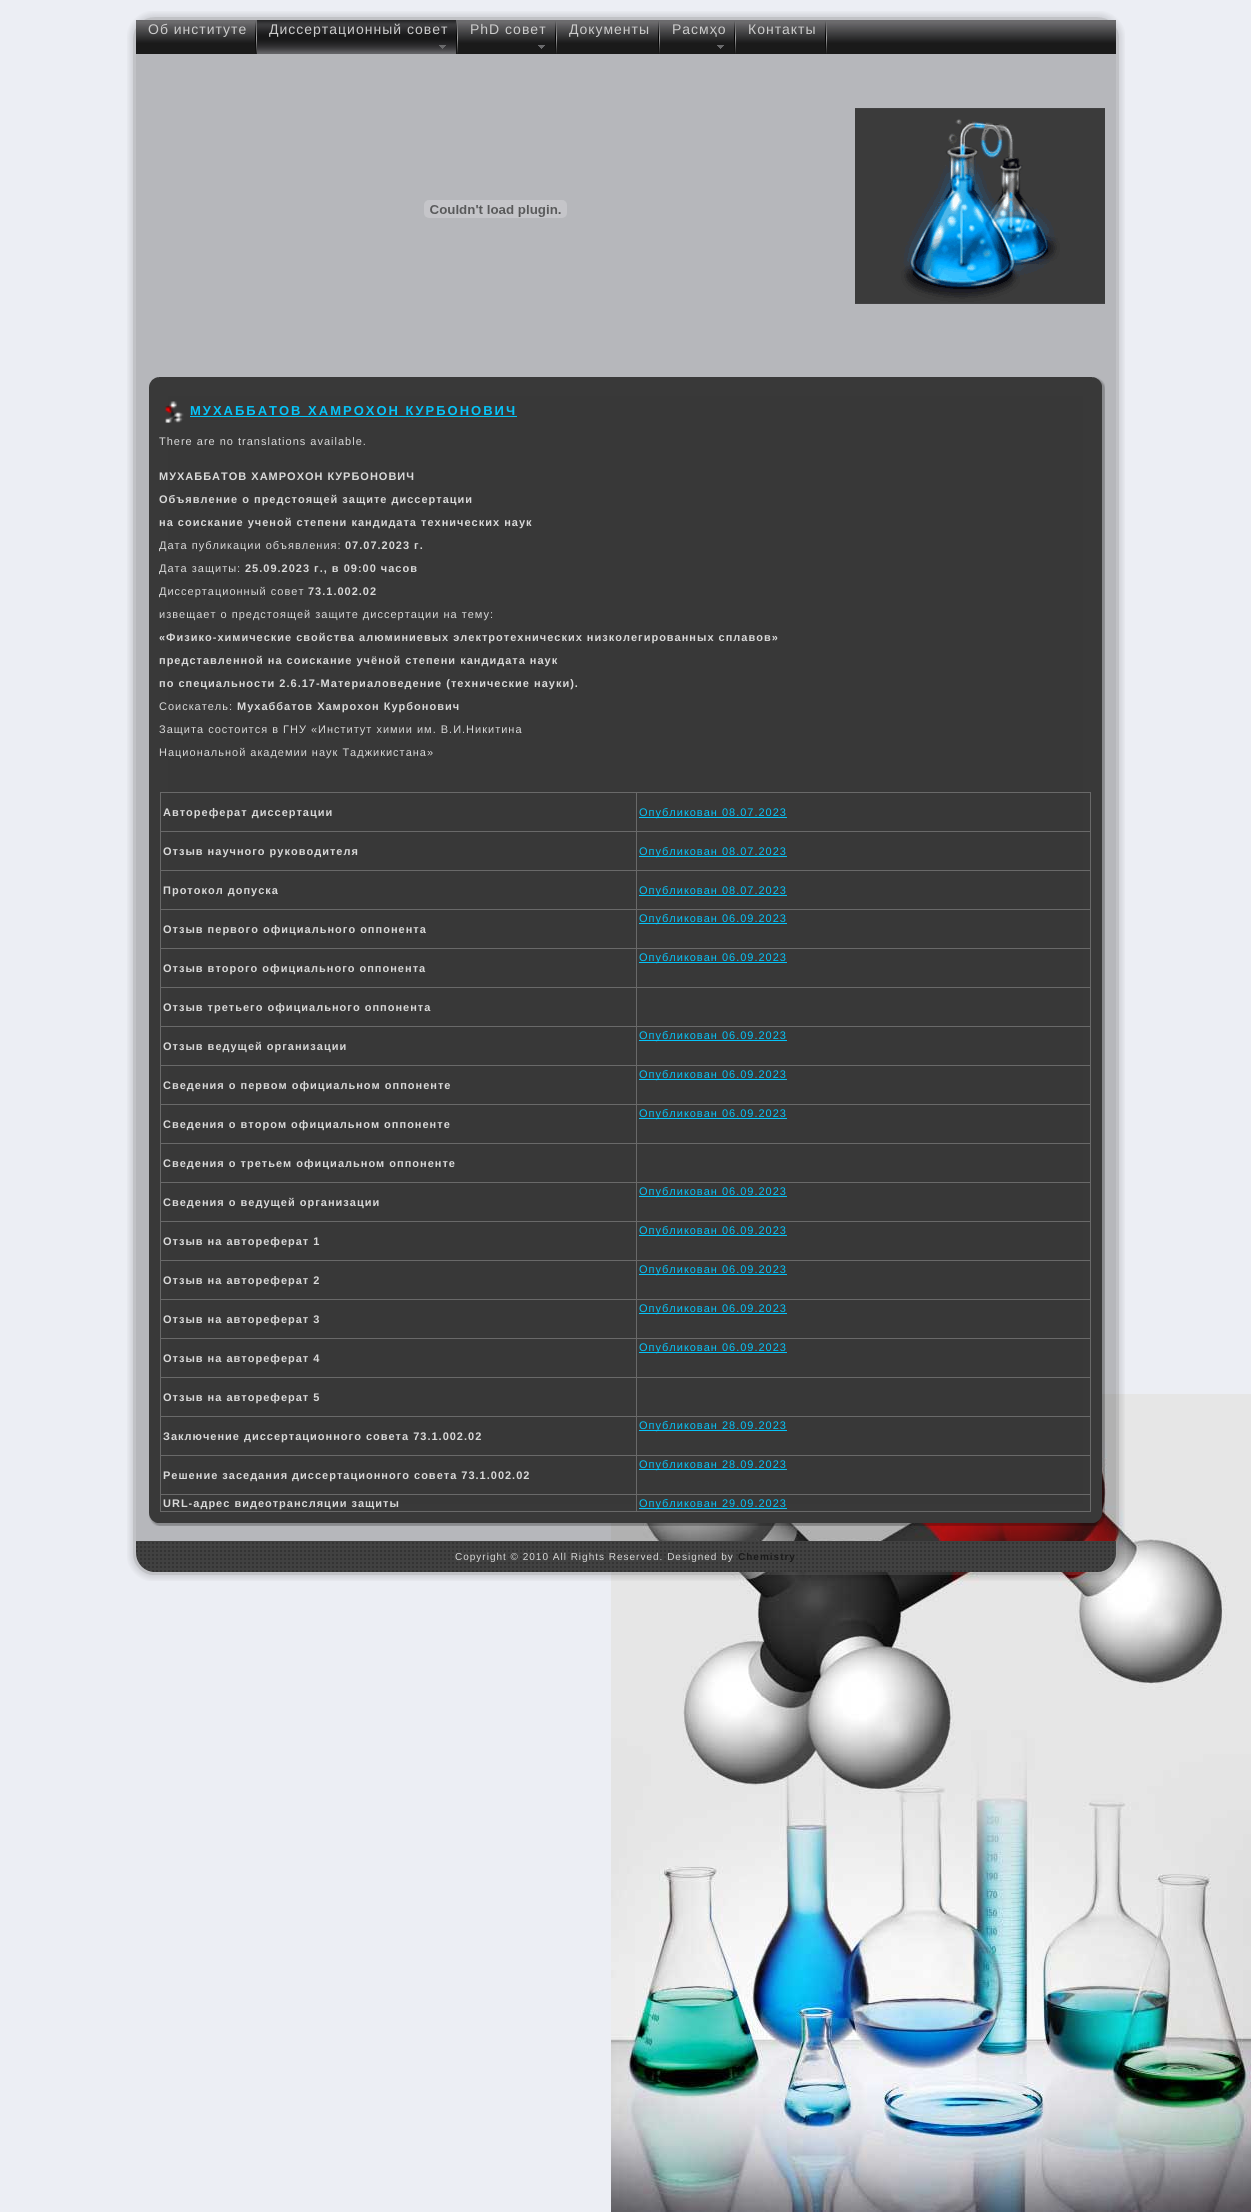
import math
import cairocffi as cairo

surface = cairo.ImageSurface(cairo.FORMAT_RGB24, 1251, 2212)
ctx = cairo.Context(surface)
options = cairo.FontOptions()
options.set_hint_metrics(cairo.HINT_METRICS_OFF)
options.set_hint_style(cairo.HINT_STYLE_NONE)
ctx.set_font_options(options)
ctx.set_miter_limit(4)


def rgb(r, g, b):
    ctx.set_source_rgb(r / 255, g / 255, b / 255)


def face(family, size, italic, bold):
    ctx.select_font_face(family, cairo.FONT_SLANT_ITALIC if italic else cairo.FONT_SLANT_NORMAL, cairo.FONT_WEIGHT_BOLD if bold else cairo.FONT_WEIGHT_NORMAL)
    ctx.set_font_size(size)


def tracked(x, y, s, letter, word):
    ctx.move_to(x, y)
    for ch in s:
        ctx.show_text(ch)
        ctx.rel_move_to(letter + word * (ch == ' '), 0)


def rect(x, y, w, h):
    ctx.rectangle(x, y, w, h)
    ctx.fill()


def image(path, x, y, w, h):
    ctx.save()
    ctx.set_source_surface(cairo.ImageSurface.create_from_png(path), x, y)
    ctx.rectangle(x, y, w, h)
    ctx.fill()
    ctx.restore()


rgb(236, 238, 244)
ctx.paint()
image('image0.png', 611, 1394, 640, 818)
image('image1.png', 127, 11, 49, 49)
image('image2.png', 176, 11, 900, 49)
image('image3.png', 1076, 11, 49, 49)
image('image4.png', 136, 20, 980, 34)
image('image5.png', 255, 21, 2, 33)
face('Liberation Sans', 14, 0, 0)
rgb(204, 204, 204)
tracked(148, 34, 'Об институте', 1, 0)
image('image6.png', 257, 20, 199, 34)
image('image7.png', 456, 20, 2, 34)
image('image8.png', 439, 45, 7, 4)
tracked(269, 34, 'Диссертационный совет', 1, 0)
image('image5.png', 555, 21, 2, 33)
image('image9.png', 538, 45, 7, 4)
tracked(470, 34, 'PhD совет', 1, 0)
image('image5.png', 658, 21, 2, 33)
tracked(569, 34, 'Документы', 1, 0)
image('image5.png', 734, 21, 2, 33)
image('image9.png', 717, 45, 7, 4)
tracked(672, 34, 'Расмҳо', 1, 0)
image('image5.png', 825, 21, 2, 33)
tracked(748, 34, 'Контакты', 1, 0)
ctx.set_source_rgba(0.212, 0.212, 0.212, 0.3)
rect(176, 60, 900, 1472)
image('image10.png', 424, 200, 143, 18)
image('image21.png', 1076, 60, 49, 1472)
image('image11.png', 855, 108, 250, 196)
image('image20.png', 127, 60, 49, 1472)
image('image12.png', 149, 377, 19, 19)
rgb(57, 57, 57)
rect(168, 377, 915, 19)
image('image13.png', 1083, 377, 22, 19)
rect(149, 396, 19, 1108)
rgb(56, 56, 56)
rect(168, 396, 915, 1108)
image('image14.png', 1083, 396, 22, 1108)
image('image15.png', 165, 401, 19, 22)
face('Liberation Sans', 13, 0, 1)
rgb(6, 196, 249)
tracked(190, 415, 'МУХАББАТОВ ХАМРОХОН КУРБОНОВИЧ', 2, 0)
rect(190, 416, 327, 1)
face('Liberation Sans', 11, 0, 0)
rgb(217, 217, 217)
tracked(159, 445, 'There are no translations available.', 1, 0)
face('Liberation Sans', 11, 0, 1)
tracked(159, 480, 'МУХАББАТОВ ХАМРОХОН КУРБОНОВИЧ', 1, 0)
tracked(159, 503, 'Объявление о предстоящей защите диссертации', 1, 0)
tracked(159, 526, 'на соискание ученой степени кандидата технических наук', 1, 0)
face('Liberation Sans', 11, 0, 0)
tracked(159, 549, 'Дата публикации объявления:', 1, 0)
face('Liberation Sans', 11, 0, 1)
tracked(345, 549, '07.07.2023 г.', 1, 0)
face('Liberation Sans', 11, 0, 0)
tracked(159, 572, 'Дата защиты:', 1, 0)
face('Liberation Sans', 11, 0, 1)
tracked(245, 572, '25.09.2023 г., в 09:00 часов', 1, 0)
face('Liberation Sans', 11, 0, 0)
tracked(159, 595, 'Диссертационный совет', 1, 0)
face('Liberation Sans', 11, 0, 1)
tracked(308, 595, '73.1.002.02', 1, 0)
face('Liberation Sans', 11, 0, 0)
tracked(159, 618, 'извещает о предстоящей защите диссертации на тему:', 1, 0)
face('Liberation Sans', 11, 0, 1)
tracked(159, 641, '«Физико-химические свойства алюминиевых электротехнических низколегированных сплавов»', 1, 0)
tracked(159, 664, 'представленной на соискание учёной степени кандидата наук', 1, 0)
tracked(159, 687, 'по специальности 2.6.17-Материаловедение (технические науки).', 1, 0)
face('Liberation Sans', 11, 0, 0)
tracked(159, 710, 'Соискатель:', 1, 0)
face('Liberation Sans', 11, 0, 1)
tracked(237, 710, 'Мухаббатов Хамрохон Курбонович', 1, 0)
face('Liberation Sans', 11, 0, 0)
tracked(159, 733, 'Защита состоится в ГНУ «Институт химии им. В.И.Никитина', 1, 0)
tracked(159, 756, 'Национальной академии наук Таджикистана»', 1, 0)
rgb(105, 105, 105)
rect(636, 792, 455, 1)
rect(636, 831, 455, 1)
rect(636, 870, 455, 1)
rect(636, 909, 455, 1)
rect(636, 948, 455, 1)
rect(636, 987, 455, 1)
rect(636, 1026, 455, 1)
rect(636, 1065, 455, 1)
rect(636, 1104, 455, 1)
rect(636, 1143, 455, 1)
rect(636, 1182, 455, 1)
rect(636, 1221, 455, 1)
rect(636, 1260, 455, 1)
rect(636, 1299, 455, 1)
rect(636, 1338, 455, 1)
rect(636, 1377, 455, 1)
rect(636, 1416, 455, 1)
rect(636, 1455, 455, 1)
rect(636, 1494, 455, 1)
image('image18.png', 1083, 1504, 22, 22)
rect(1090, 1494, 1, 18)
image('image17.png', 168, 1504, 915, 22)
rect(636, 1511, 455, 1)
rect(636, 1494, 1, 18)
rect(160, 1494, 477, 1)
rect(636, 1455, 1, 40)
rect(160, 1455, 477, 1)
rect(636, 1416, 1, 40)
rect(160, 1416, 477, 1)
rect(636, 1377, 1, 40)
rect(160, 1377, 477, 1)
rect(636, 1338, 1, 40)
rect(160, 1338, 477, 1)
rect(636, 1299, 1, 40)
rect(160, 1299, 477, 1)
rect(636, 1260, 1, 40)
rect(160, 1260, 477, 1)
rect(636, 1221, 1, 40)
rect(160, 1221, 477, 1)
rect(636, 1182, 1, 40)
rect(160, 1182, 477, 1)
rect(636, 1143, 1, 40)
rect(160, 1143, 477, 1)
rect(636, 1104, 1, 40)
rect(160, 1104, 477, 1)
rect(636, 1065, 1, 40)
rect(160, 1065, 477, 1)
rect(636, 1026, 1, 40)
rect(160, 1026, 477, 1)
rect(636, 987, 1, 40)
rect(160, 987, 477, 1)
rect(636, 948, 1, 40)
rect(160, 948, 477, 1)
rect(636, 909, 1, 40)
rect(160, 909, 477, 1)
rect(636, 870, 1, 40)
rect(160, 870, 477, 1)
rect(636, 831, 1, 40)
rect(160, 831, 477, 1)
rect(636, 792, 1, 40)
rect(160, 792, 477, 1)
image('image16.png', 149, 1504, 19, 22)
rect(160, 1511, 477, 1)
rect(160, 1494, 1, 18)
rect(160, 1455, 1, 40)
rect(160, 1416, 1, 40)
rect(160, 1377, 1, 40)
rect(160, 1338, 1, 40)
rect(160, 1299, 1, 40)
rect(160, 1260, 1, 40)
rect(160, 1221, 1, 40)
rect(160, 1182, 1, 40)
rect(160, 1143, 1, 40)
rect(160, 1104, 1, 40)
rect(160, 1065, 1, 40)
rect(160, 1026, 1, 40)
rect(160, 987, 1, 40)
rect(160, 948, 1, 40)
rect(160, 909, 1, 40)
rect(160, 870, 1, 40)
rect(160, 831, 1, 40)
rect(160, 792, 1, 40)
face('Liberation Sans', 11, 0, 1)
rgb(217, 217, 217)
tracked(163, 816, 'Автореферат диссертации', 1, 0)
rgb(105, 105, 105)
rect(1090, 1455, 1, 40)
rect(1090, 1416, 1, 40)
rect(1090, 1377, 1, 40)
rect(1090, 1338, 1, 40)
rect(1090, 1299, 1, 40)
rect(1090, 1260, 1, 40)
rect(1090, 1221, 1, 40)
rect(1090, 1182, 1, 40)
rect(1090, 1143, 1, 40)
rect(1090, 1104, 1, 40)
rect(1090, 1065, 1, 40)
rect(1090, 1026, 1, 40)
rect(1090, 987, 1, 40)
rect(1090, 948, 1, 40)
rect(1090, 909, 1, 40)
rect(1090, 870, 1, 40)
rect(1090, 831, 1, 40)
rect(1090, 792, 1, 40)
rgb(6, 196, 249)
rect(639, 817, 148, 1)
face('Liberation Sans', 11, 0, 0)
tracked(639, 816, 'Опубликован 08.07.2023', 1, 0)
face('Liberation Sans', 11, 0, 1)
rgb(217, 217, 217)
tracked(163, 855, 'Отзыв научного руководителя', 1, 0)
rgb(6, 196, 249)
rect(639, 856, 148, 1)
face('Liberation Sans', 11, 0, 0)
tracked(639, 855, 'Опубликован 08.07.2023', 1, 0)
face('Liberation Sans', 11, 0, 1)
rgb(217, 217, 217)
tracked(163, 894, 'Протокол допуска', 1, 0)
rgb(6, 196, 249)
rect(639, 895, 148, 1)
face('Liberation Sans', 11, 0, 0)
tracked(639, 894, 'Опубликован 08.07.2023', 1, 0)
rect(639, 923, 148, 1)
tracked(639, 922, 'Опубликован 06.09.2023', 1, 0)
face('Liberation Sans', 11, 0, 1)
rgb(217, 217, 217)
tracked(163, 933, 'Отзыв первого официального оппонента', 1, 0)
rgb(6, 196, 249)
rect(639, 962, 148, 1)
face('Liberation Sans', 11, 0, 0)
tracked(639, 961, 'Опубликован 06.09.2023', 1, 0)
face('Liberation Sans', 11, 0, 1)
rgb(217, 217, 217)
tracked(163, 972, 'Отзыв второго официального оппонента', 1, 0)
tracked(163, 1011, 'Отзыв третьего официального оппонента', 1, 0)
rgb(6, 196, 249)
rect(639, 1040, 148, 1)
face('Liberation Sans', 11, 0, 0)
tracked(639, 1039, 'Опубликован 06.09.2023', 1, 0)
face('Liberation Sans', 11, 0, 1)
rgb(217, 217, 217)
tracked(163, 1050, 'Отзыв ведущей организации', 1, 0)
rgb(6, 196, 249)
rect(639, 1079, 148, 1)
face('Liberation Sans', 11, 0, 0)
tracked(639, 1078, 'Опубликован 06.09.2023', 1, 0)
face('Liberation Sans', 11, 0, 1)
rgb(217, 217, 217)
tracked(163, 1089, 'Сведения о первом официальном оппоненте', 1, 0)
rgb(6, 196, 249)
rect(639, 1118, 148, 1)
face('Liberation Sans', 11, 0, 0)
tracked(639, 1117, 'Опубликован 06.09.2023', 1, 0)
face('Liberation Sans', 11, 0, 1)
rgb(217, 217, 217)
tracked(163, 1128, 'Сведения о втором официальном оппоненте', 1, 0)
tracked(163, 1167, 'Сведения о третьем официальном оппоненте', 1, 0)
rgb(6, 196, 249)
rect(639, 1196, 148, 1)
face('Liberation Sans', 11, 0, 0)
tracked(639, 1195, 'Опубликован 06.09.2023', 1, 0)
face('Liberation Sans', 11, 0, 1)
rgb(217, 217, 217)
tracked(163, 1206, 'Сведения о ведущей организации', 1, 0)
rgb(6, 196, 249)
rect(639, 1235, 148, 1)
face('Liberation Sans', 11, 0, 0)
tracked(639, 1234, 'Опубликован 06.09.2023', 1, 0)
face('Liberation Sans', 11, 0, 1)
rgb(217, 217, 217)
tracked(163, 1245, 'Отзыв на автореферат 1', 1, 0)
rgb(6, 196, 249)
rect(639, 1274, 148, 1)
face('Liberation Sans', 11, 0, 0)
tracked(639, 1273, 'Опубликован 06.09.2023', 1, 0)
face('Liberation Sans', 11, 0, 1)
rgb(217, 217, 217)
tracked(163, 1284, 'Отзыв на автореферат 2', 1, 0)
rgb(6, 196, 249)
rect(639, 1313, 148, 1)
face('Liberation Sans', 11, 0, 0)
tracked(639, 1312, 'Опубликован 06.09.2023', 1, 0)
face('Liberation Sans', 11, 0, 1)
rgb(217, 217, 217)
tracked(163, 1323, 'Отзыв на автореферат 3', 1, 0)
rgb(6, 196, 249)
rect(639, 1352, 148, 1)
face('Liberation Sans', 11, 0, 0)
tracked(639, 1351, 'Опубликован 06.09.2023', 1, 0)
face('Liberation Sans', 11, 0, 1)
rgb(217, 217, 217)
tracked(163, 1362, 'Отзыв на автореферат 4', 1, 0)
tracked(163, 1401, 'Отзыв на автореферат 5', 1, 0)
rgb(6, 196, 249)
rect(639, 1430, 148, 1)
face('Liberation Sans', 11, 0, 0)
tracked(639, 1429, 'Опубликован 28.09.2023', 1, 0)
face('Liberation Sans', 11, 0, 1)
rgb(217, 217, 217)
tracked(163, 1440, 'Заключение диссертационного совета 73.1.002.02', 1, 0)
rgb(6, 196, 249)
rect(639, 1469, 148, 1)
face('Liberation Sans', 11, 0, 0)
tracked(639, 1468, 'Опубликован 28.09.2023', 1, 0)
face('Liberation Sans', 11, 0, 1)
rgb(217, 217, 217)
tracked(163, 1479, 'Решение заседания диссертационного совета 73.1.002.02', 1, 0)
tracked(163, 1507, 'URL-адрес видеотрансляции защиты', 1, 0)
rgb(6, 196, 249)
rect(639, 1508, 148, 1)
face('Liberation Sans', 11, 0, 0)
tracked(639, 1507, 'Опубликован 29.09.2023', 1, 0)
image('image22.png', 127, 1532, 49, 49)
image('image23.png', 176, 1532, 900, 49)
image('image24.png', 1076, 1532, 49, 49)
image('image19.png', 136, 1541, 980, 31)
face('Liberation Sans', 10, 0, 0)
rgb(217, 217, 217)
tracked(455, 1560, 'Copyright © 2010 All Rights Reserved. Designed by', 1, 0)
face('Liberation Sans', 10, 0, 1)
rgb(26, 26, 26)
tracked(738, 1560, 'Chemistry', 1, 0)
surface.write_to_png('render.png')
